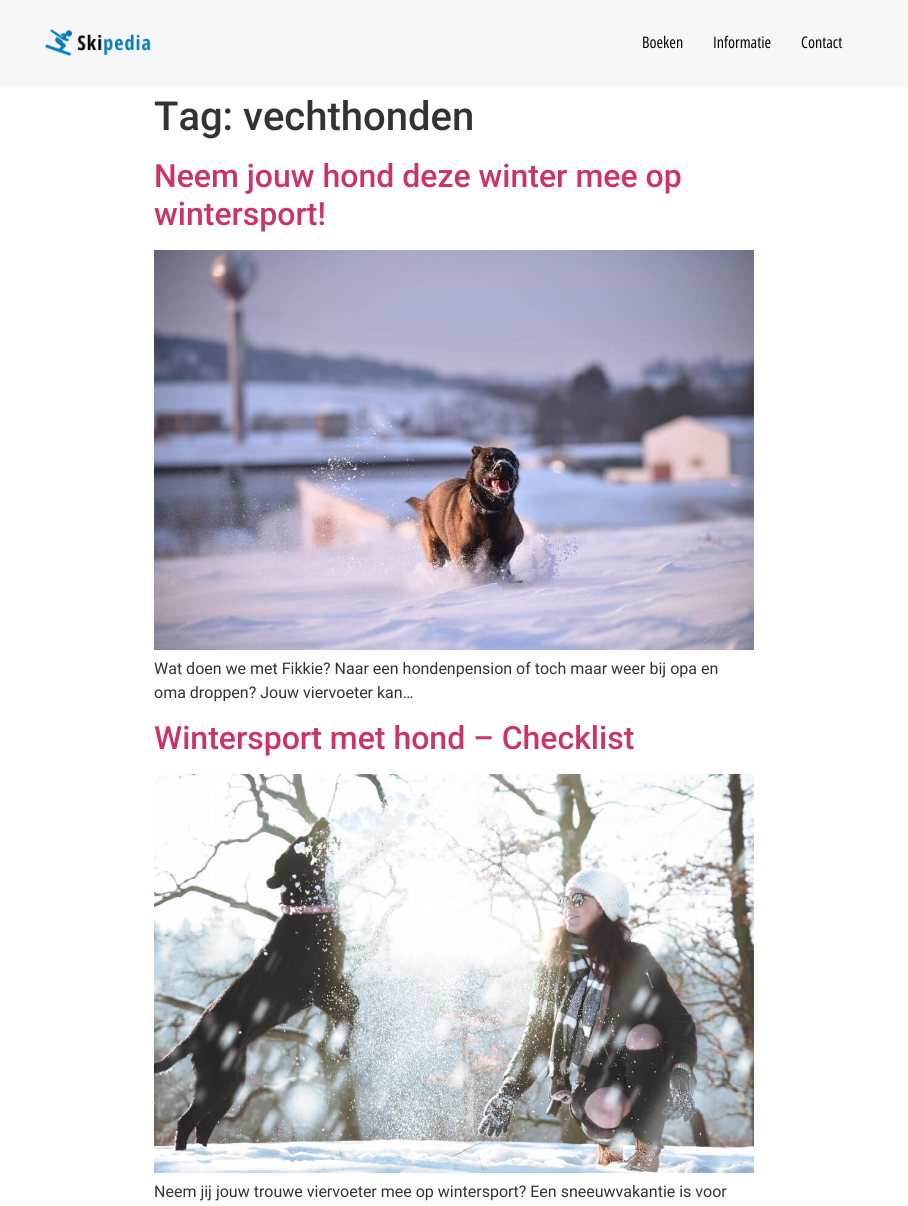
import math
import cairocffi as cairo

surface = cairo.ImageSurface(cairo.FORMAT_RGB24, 908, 1206)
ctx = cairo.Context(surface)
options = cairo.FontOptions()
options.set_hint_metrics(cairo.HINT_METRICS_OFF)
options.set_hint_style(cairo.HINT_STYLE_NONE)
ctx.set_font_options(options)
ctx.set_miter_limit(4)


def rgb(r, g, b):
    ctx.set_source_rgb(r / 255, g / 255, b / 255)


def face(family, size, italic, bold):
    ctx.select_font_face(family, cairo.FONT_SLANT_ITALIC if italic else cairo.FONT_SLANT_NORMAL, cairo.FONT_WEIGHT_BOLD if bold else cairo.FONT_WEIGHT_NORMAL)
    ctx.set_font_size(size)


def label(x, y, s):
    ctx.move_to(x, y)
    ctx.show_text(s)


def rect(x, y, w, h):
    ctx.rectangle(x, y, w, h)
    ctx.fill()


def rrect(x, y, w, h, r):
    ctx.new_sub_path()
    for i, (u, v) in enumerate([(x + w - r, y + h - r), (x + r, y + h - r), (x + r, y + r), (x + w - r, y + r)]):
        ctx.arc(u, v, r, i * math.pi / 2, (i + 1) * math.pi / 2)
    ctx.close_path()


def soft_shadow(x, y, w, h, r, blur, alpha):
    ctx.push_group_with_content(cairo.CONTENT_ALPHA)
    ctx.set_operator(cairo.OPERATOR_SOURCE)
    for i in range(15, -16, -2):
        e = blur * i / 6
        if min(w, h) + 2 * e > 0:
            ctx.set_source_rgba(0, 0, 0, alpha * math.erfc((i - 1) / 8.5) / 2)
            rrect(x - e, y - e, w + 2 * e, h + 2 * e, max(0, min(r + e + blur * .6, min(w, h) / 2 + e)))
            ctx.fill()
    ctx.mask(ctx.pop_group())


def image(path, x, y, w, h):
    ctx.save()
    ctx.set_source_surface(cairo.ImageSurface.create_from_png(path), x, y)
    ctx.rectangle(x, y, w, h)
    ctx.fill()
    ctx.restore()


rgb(255, 255, 255)
ctx.paint()
rgb(246, 246, 246)
rect(0, 0, 908, 85)
ctx.save()
ctx.rectangle(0, 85, 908, 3)
ctx.clip()
rgb(5, 125, 188)
soft_shadow(0, 0, 908, 85, 0, 2.5, 0.15)
ctx.restore()
image('image0.png', 45, 29, 106, 27)
face('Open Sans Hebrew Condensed', 16, 0, 0)
rgb(0, 0, 0)
label(642, 48, 'Boeken')
label(713, 48, 'Informatie')
label(801, 48, 'Contact')
face('Roboto Medium', 40, 0, 0)
rgb(51, 51, 51)
label(154, 130, 'Tag: vechthonden')
face('Roboto Medium', 32, 0, 0)
rgb(204, 51, 102)
label(154, 187, 'Neem jouw hond deze winter mee op')
label(154, 225, 'wintersport!')
image('image1.png', 154, 250, 600, 400)
face('Roboto', 16, 0, 0)
rgb(51, 51, 51)
label(154, 674, 'Wat doen we met Fikkie? Naar een hondenpension of toch maar weer bij opa en')
label(154, 698, 'oma droppen? Jouw viervoeter kan…')
face('Roboto Medium', 32, 0, 0)
rgb(204, 51, 102)
label(154, 749, 'Wintersport met hond – Checklist')
image('image2.png', 154, 774, 600, 399)
face('Roboto', 16, 0, 0)
rgb(51, 51, 51)
label(154, 1197, 'Neem jij jouw trouwe viervoeter mee op wintersport? Een sneeuwvakantie is voor')
surface.write_to_png('render.png')
